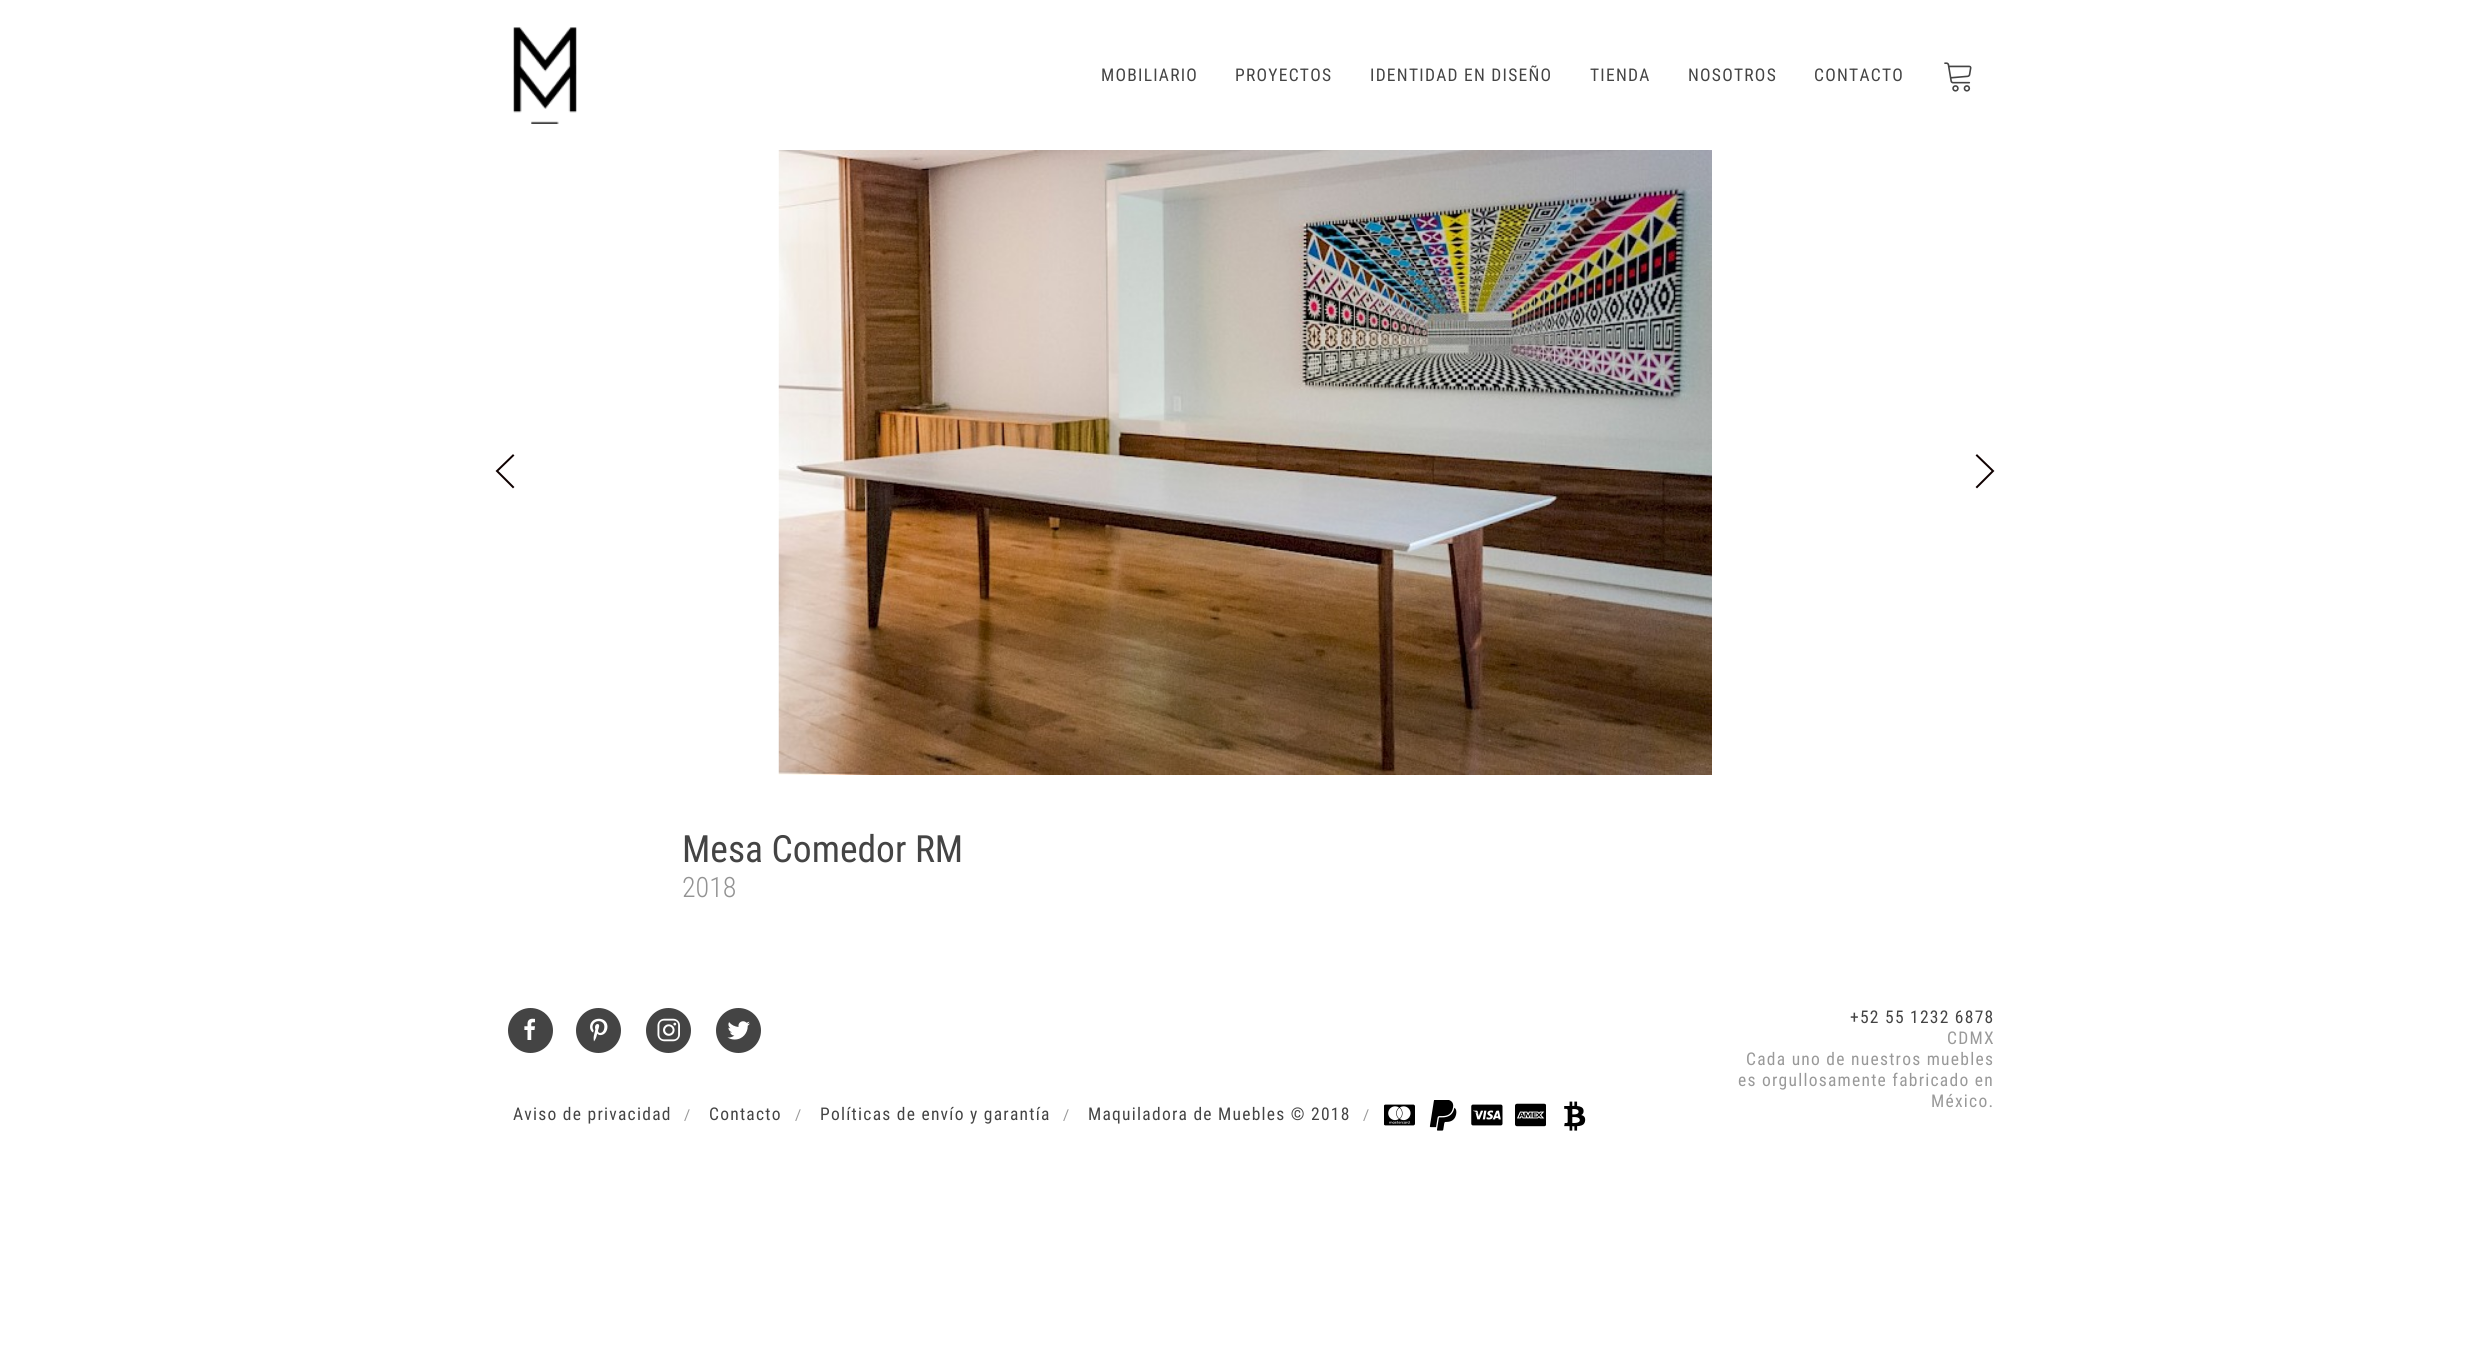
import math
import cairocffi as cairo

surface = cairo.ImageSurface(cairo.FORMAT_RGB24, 2488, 1348)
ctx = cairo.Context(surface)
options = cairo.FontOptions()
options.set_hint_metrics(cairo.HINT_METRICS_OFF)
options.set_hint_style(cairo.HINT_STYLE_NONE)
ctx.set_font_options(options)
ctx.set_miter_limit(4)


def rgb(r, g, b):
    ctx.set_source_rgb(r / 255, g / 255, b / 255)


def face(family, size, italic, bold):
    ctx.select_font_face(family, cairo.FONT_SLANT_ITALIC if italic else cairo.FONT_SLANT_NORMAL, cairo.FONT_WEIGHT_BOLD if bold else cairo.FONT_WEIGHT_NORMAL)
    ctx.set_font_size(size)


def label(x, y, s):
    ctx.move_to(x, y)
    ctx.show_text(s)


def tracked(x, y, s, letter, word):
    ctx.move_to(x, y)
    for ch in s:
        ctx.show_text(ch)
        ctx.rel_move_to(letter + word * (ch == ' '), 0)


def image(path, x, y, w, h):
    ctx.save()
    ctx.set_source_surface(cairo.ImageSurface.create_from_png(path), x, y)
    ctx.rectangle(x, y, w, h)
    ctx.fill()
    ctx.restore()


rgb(255, 255, 255)
ctx.paint()
image('image0.png', 513, 27, 64, 97)
face('Roboto Condensed', 17.5, 0, 0)
rgb(68, 68, 68)
tracked(1101, 81, 'MOBILIARIO', 1.25, 0)
tracked(1235, 81, 'PROYECTOS', 1.25, 0)
tracked(1370, 81, 'IDENTIDAD EN DISEÑO', 1.25, 0)
tracked(1590, 81, 'TIENDA', 1.25, 0)
tracked(1688, 81, 'NOSOTROS', 1.25, 0)
tracked(1814, 81, 'CONTACTO', 1.25, 0)
image('image1.png', 1944, 62, 28, 30)
ctx.new_path()
ctx.move_to(513, 455.5)
ctx.line_to(497, 471)
ctx.line_to(513, 487)
rgb(14, 0, 0)
ctx.set_line_cap(cairo.LINE_CAP_SQUARE)
ctx.stroke()
image('image2.png', 778, 150, 934, 625)
ctx.new_path()
ctx.move_to(1977, 455.5)
ctx.line_to(1993, 471)
ctx.line_to(1977, 487)
ctx.stroke()
face('Roboto Condensed', 37.5, 0, 0)
rgb(68, 68, 68)
label(682, 862, 'Mesa Comedor RM')
face('Roboto Condensed Light', 28, 0, 0)
rgb(147, 147, 147)
label(682, 897, '2018')
face('Roboto Condensed', 17.5, 0, 0)
rgb(68, 68, 68)
tracked(1850, 1023, '+52 55 1232 6878', 1.25, 0)
rgb(153, 153, 153)
tracked(1947, 1044, 'CDMX', 1.25, 0)
tracked(1746, 1065, 'Cada uno de nuestros muebles', 1.25, 0)
tracked(1738, 1086, 'es orgullosamente fabricado en', 1.25, 0)
tracked(1931, 1107, 'México.', 1.25, 0)
rgb(68, 68, 68)
ctx.new_path()
ctx.arc(530.5, 1030.5, 22.5, 0, 2 * math.pi)
ctx.fill()
image('image3.png', 524, 1018, 11, 22)
ctx.arc(598.5, 1030.5, 22.5, 0, 2 * math.pi)
ctx.fill()
image('image4.png', 590, 1018, 18, 24)
ctx.arc(668.5, 1030.5, 22.5, 0, 2 * math.pi)
ctx.fill()
image('image5.png', 657, 1018, 23, 24)
ctx.arc(738.5, 1030.5, 22.5, 0, 2 * math.pi)
ctx.fill()
image('image6.png', 727, 1021, 23, 19)
tracked(513, 1120, 'Aviso de privacidad', 1.25, 0)
face('Roboto', 15, 0, 0)
rgb(153, 153, 153)
label(684, 1120, '/')
face('Roboto Condensed', 17.5, 0, 0)
rgb(68, 68, 68)
tracked(709, 1120, 'Contacto', 1.25, 0)
face('Roboto', 15, 0, 0)
rgb(153, 153, 153)
label(795, 1120, '/')
face('Roboto Condensed', 17.5, 0, 0)
rgb(68, 68, 68)
tracked(820, 1120, 'Políticas de envío y garantía', 1.25, 0)
face('Roboto', 15, 0, 0)
rgb(153, 153, 153)
label(1063, 1120, '/')
face('Roboto Condensed', 17.5, 0, 0)
rgb(68, 68, 68)
tracked(1088, 1120, 'Maquiladora de Muebles © 2018', 1.25, 0)
face('Roboto', 15, 0, 0)
rgb(153, 153, 153)
label(1363, 1120, '/')
image('image7.png', 1384, 1104, 31, 22)
image('image8.png', 1429, 1100, 28, 31)
image('image9.png', 1471, 1104, 32, 22)
image('image10.png', 1515, 1103, 31, 24)
image('image11.png', 1564, 1101, 22, 30)
surface.write_to_png('render.png')
